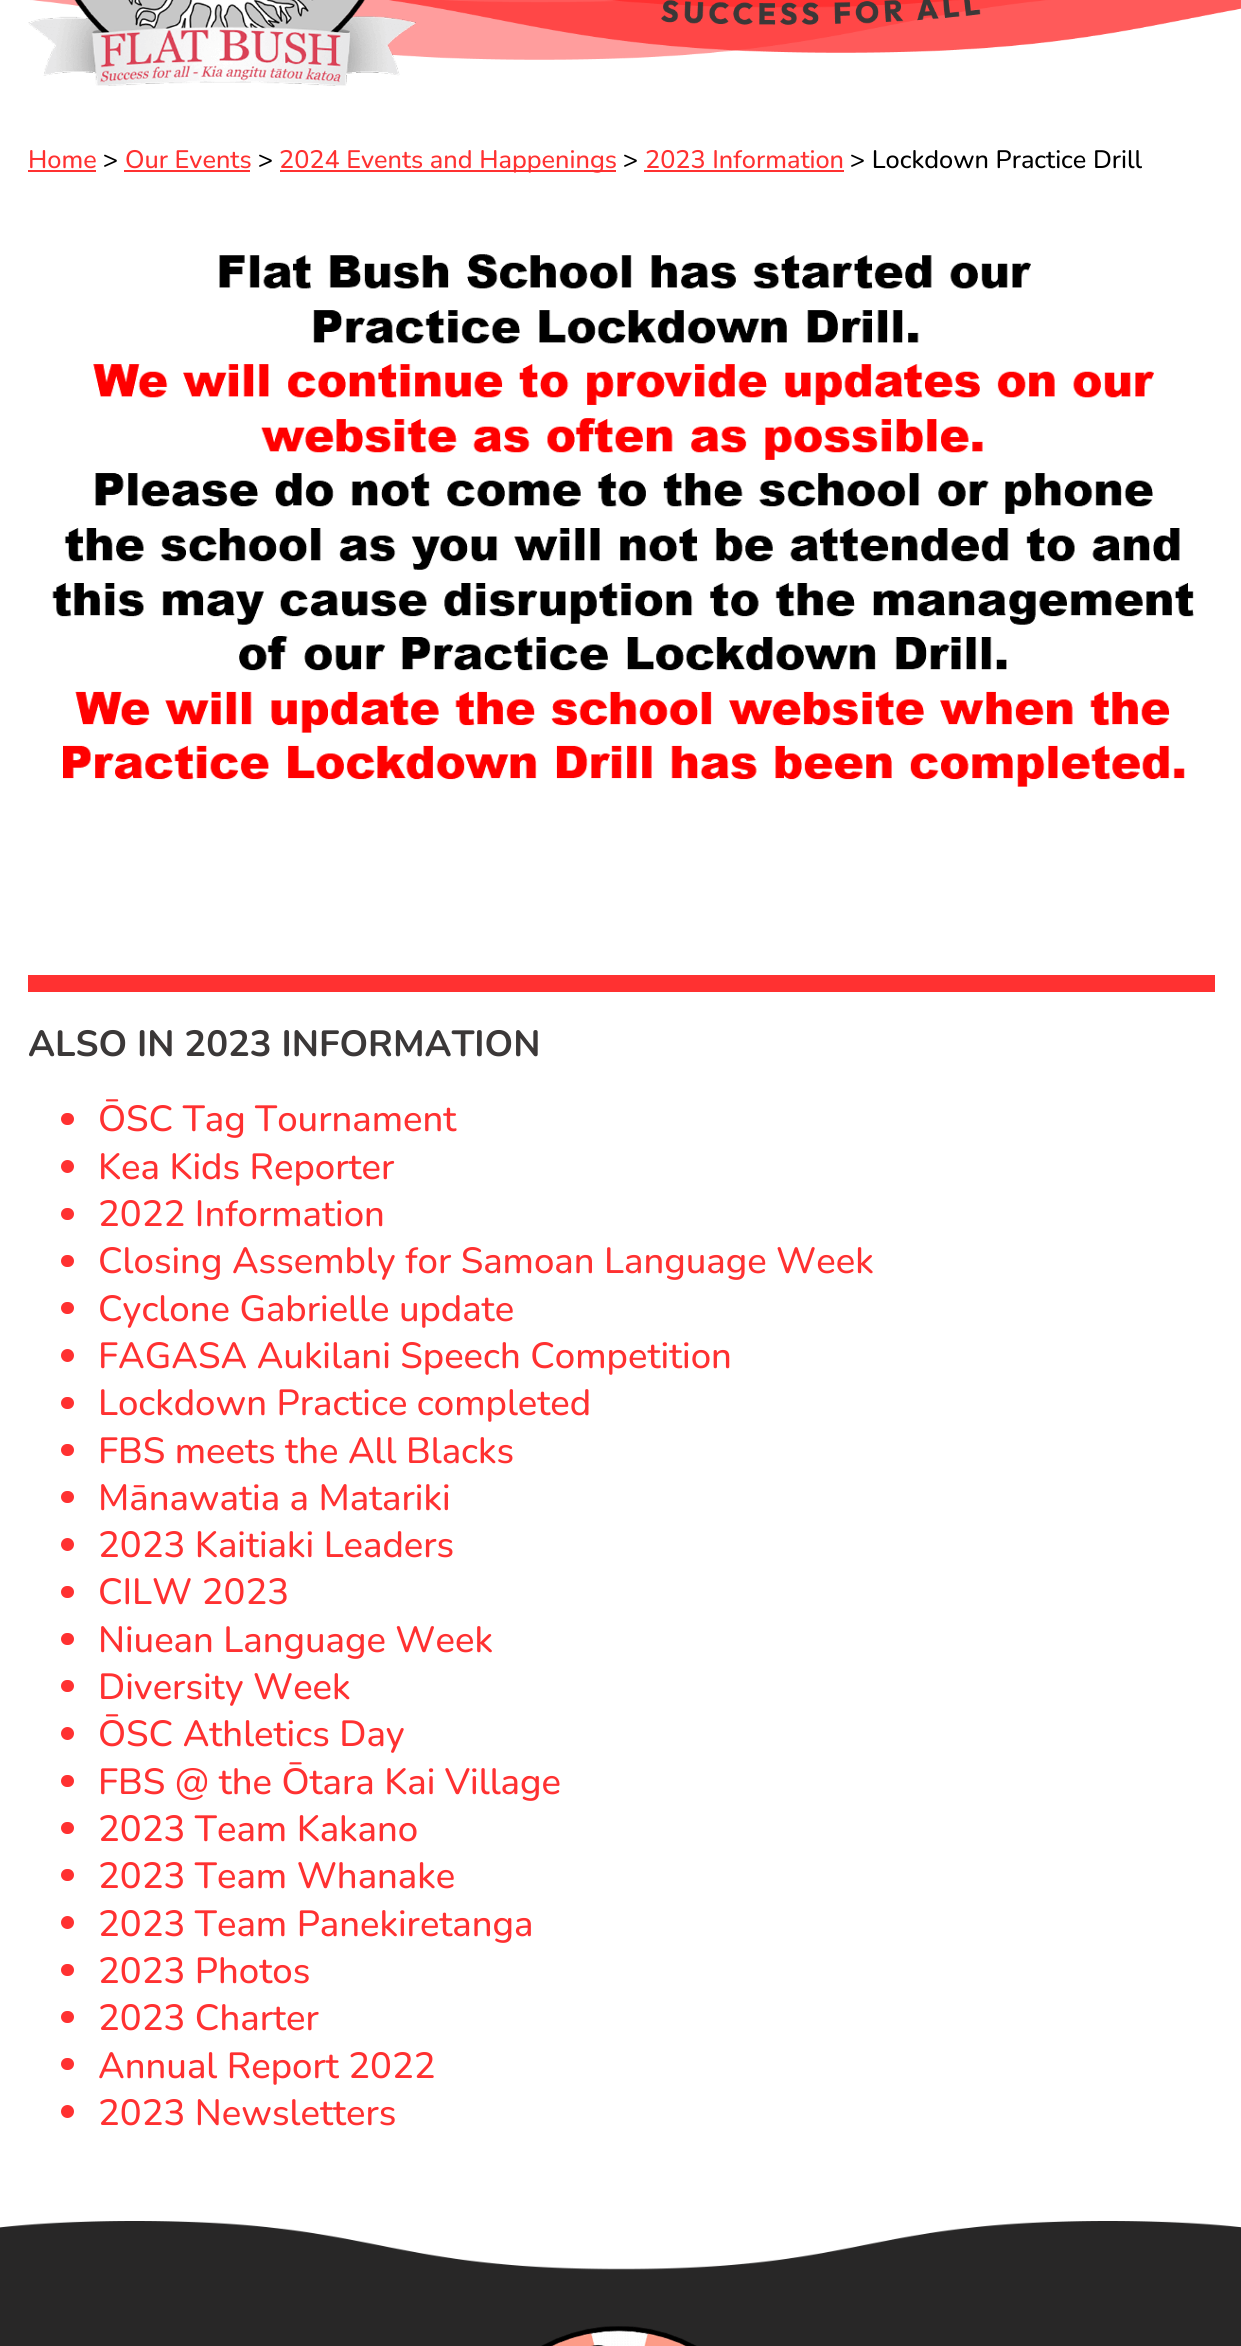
import math
import cairocffi as cairo

surface = cairo.ImageSurface(cairo.FORMAT_RGB24, 1241, 2346)
ctx = cairo.Context(surface)
options = cairo.FontOptions()
options.set_hint_metrics(cairo.HINT_METRICS_OFF)
options.set_hint_style(cairo.HINT_STYLE_NONE)
ctx.set_font_options(options)
ctx.set_miter_limit(4)


def rgb(r, g, b):
    ctx.set_source_rgb(r / 255, g / 255, b / 255)


def face(family, size, italic, bold):
    ctx.select_font_face(family, cairo.FONT_SLANT_ITALIC if italic else cairo.FONT_SLANT_NORMAL, cairo.FONT_WEIGHT_BOLD if bold else cairo.FONT_WEIGHT_NORMAL)
    ctx.set_font_size(size)


def label(x, y, s):
    ctx.move_to(x, y)
    ctx.show_text(s)


def rect(x, y, w, h):
    ctx.rectangle(x, y, w, h)
    ctx.fill()


def rrect(x, y, w, h, r):
    ctx.new_sub_path()
    for i, (u, v) in enumerate([(x + w - r, y + h - r), (x + r, y + h - r), (x + r, y + r), (x + w - r, y + r)]):
        ctx.arc(u, v, r, i * math.pi / 2, (i + 1) * math.pi / 2)
    ctx.close_path()


def image(path, x, y, w, h):
    ctx.save()
    ctx.set_source_surface(cairo.ImageSurface.create_from_png(path), x, y)
    ctx.rectangle(x, y, w, h)
    ctx.fill()
    ctx.restore()


rgb(255, 255, 255)
ctx.paint()
image('image0.png', 30, 0, 1211, 60)
image('image1.png', 28, 0, 388, 86)
image('image2.png', 661, 0, 320, 25)
face('Nunito Medium', 25.25, 0, 0)
rgb(255, 49, 49)
label(28, 168, 'Home')
rect(28, 170, 68, 2)
rgb(0, 0, 0)
label(103, 168, '>')
rgb(255, 49, 49)
label(125, 168, 'Our Events')
rect(124, 170, 126, 2)
rgb(0, 0, 0)
label(258, 168, '>')
rgb(255, 49, 49)
rect(280, 170, 336, 2)
label(279, 168, '2024 Events and Happenings')
rgb(0, 0, 0)
label(623, 168, '>')
rgb(255, 49, 49)
label(645, 168, '2023 Information')
rect(644, 170, 200, 2)
rgb(0, 0, 0)
label(850, 168, '> Lockdown Practice Drill')
image('image3.png', 52, 254, 1142, 533)
rgb(255, 49, 49)
rect(28, 975, 1187, 17)
face('Nunito', 36.4, 0, 1)
rgb(59, 56, 56)
label(28, 1056, 'ALSO IN 2023 INFORMATION')
rgb(255, 49, 49)
rrect(61, 1113, 13, 12, 6)
ctx.fill()
face('Nunito Medium', 36.4, 0, 0)
label(98, 1131, 'ŌSC Tag Tournament')
ctx.new_path()
ctx.arc(67.5, 1166.5, 6.5, 0, 2 * math.pi)
ctx.fill()
label(98, 1179, 'Kea Kids Reporter')
rrect(61, 1208, 13, 12, 6)
ctx.fill()
label(98, 1226, '2022 Information')
rrect(61, 1255, 13, 12, 6)
ctx.fill()
label(98, 1273, 'Closing Assembly for Samoan Language Week')
rrect(61, 1302, 13, 12, 6)
ctx.fill()
label(98, 1321, 'Cyclone Gabrielle update')
ctx.new_path()
ctx.arc(67.5, 1355.5, 6.5, 0, 2 * math.pi)
ctx.fill()
label(98, 1368, 'FAGASA Aukilani Speech Competition')
rrect(61, 1397, 13, 12, 6)
ctx.fill()
label(98, 1415, 'Lockdown Practice completed')
rrect(61, 1444, 13, 12, 6)
ctx.fill()
label(98, 1463, 'FBS meets the All Blacks')
rrect(61, 1491, 13, 12, 6)
ctx.fill()
label(98, 1510, 'Mānawatia a Matariki')
ctx.new_path()
ctx.arc(67.5, 1544.5, 6.5, 0, 2 * math.pi)
ctx.fill()
label(98, 1557, '2023 Kaitiaki Leaders')
rrect(61, 1586, 13, 12, 6)
ctx.fill()
label(98, 1604, 'CILW 2023')
rrect(61, 1633, 13, 12, 6)
ctx.fill()
label(98, 1652, 'Niuean Language Week')
rrect(61, 1680, 13, 12, 6)
ctx.fill()
label(98, 1699, 'Diversity Week')
ctx.new_path()
ctx.arc(67.5, 1733.5, 6.5, 0, 2 * math.pi)
ctx.fill()
label(98, 1746, 'ŌSC Athletics Day')
rrect(61, 1775, 13, 12, 6)
ctx.fill()
label(98, 1794, 'FBS @ the Ōtara Kai Village')
rrect(61, 1822, 13, 12, 6)
ctx.fill()
label(98, 1841, '2023 Team Kakano')
rrect(61, 1869, 13, 12, 6)
ctx.fill()
label(98, 1888, '2023 Team Whanake')
ctx.new_path()
ctx.arc(67.5, 1922.5, 6.5, 0, 2 * math.pi)
ctx.fill()
label(98, 1936, '2023 Team Panekiretanga')
rrect(61, 1964, 13, 12, 6)
ctx.fill()
label(98, 1983, '2023 Photos')
rrect(61, 2011, 13, 12, 6)
ctx.fill()
label(98, 2030, '2023 Charter')
rrect(61, 2058, 13, 12, 6)
ctx.fill()
label(98, 2078, 'Annual Report 2022')
ctx.new_path()
ctx.arc(67.5, 2111.5, 6.5, 0, 2 * math.pi)
ctx.fill()
label(98, 2125, '2023 Newsletters')
image('image4.png', 0, 2221, 1241, 49)
rgb(40, 39, 39)
rect(0, 2270, 1241, 76)
image('image5.png', 541, 2326, 156, 20)
surface.write_to_png('render.png')
